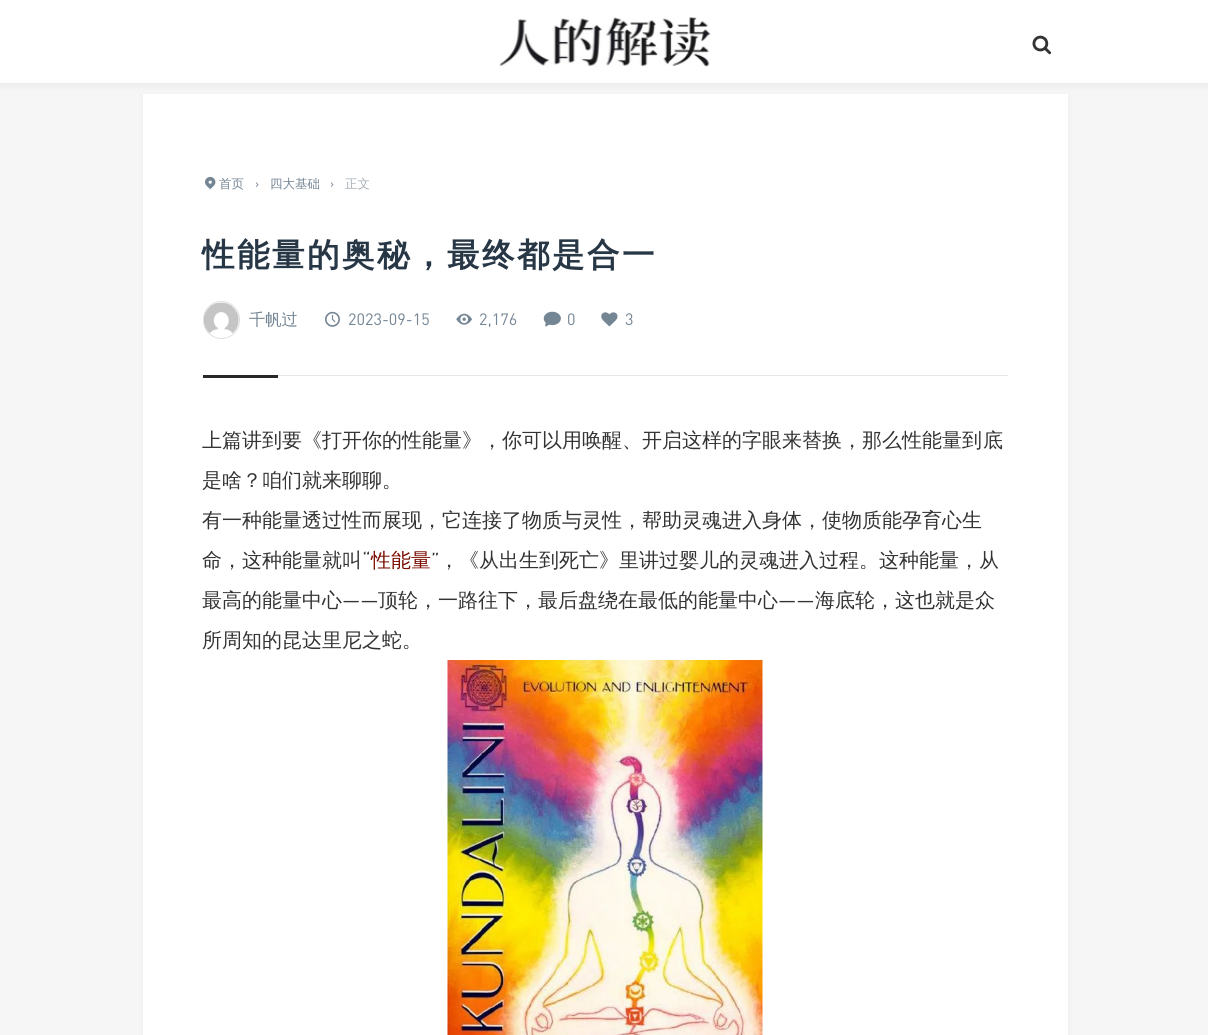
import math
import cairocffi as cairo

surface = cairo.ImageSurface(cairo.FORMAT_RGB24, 1208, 1035)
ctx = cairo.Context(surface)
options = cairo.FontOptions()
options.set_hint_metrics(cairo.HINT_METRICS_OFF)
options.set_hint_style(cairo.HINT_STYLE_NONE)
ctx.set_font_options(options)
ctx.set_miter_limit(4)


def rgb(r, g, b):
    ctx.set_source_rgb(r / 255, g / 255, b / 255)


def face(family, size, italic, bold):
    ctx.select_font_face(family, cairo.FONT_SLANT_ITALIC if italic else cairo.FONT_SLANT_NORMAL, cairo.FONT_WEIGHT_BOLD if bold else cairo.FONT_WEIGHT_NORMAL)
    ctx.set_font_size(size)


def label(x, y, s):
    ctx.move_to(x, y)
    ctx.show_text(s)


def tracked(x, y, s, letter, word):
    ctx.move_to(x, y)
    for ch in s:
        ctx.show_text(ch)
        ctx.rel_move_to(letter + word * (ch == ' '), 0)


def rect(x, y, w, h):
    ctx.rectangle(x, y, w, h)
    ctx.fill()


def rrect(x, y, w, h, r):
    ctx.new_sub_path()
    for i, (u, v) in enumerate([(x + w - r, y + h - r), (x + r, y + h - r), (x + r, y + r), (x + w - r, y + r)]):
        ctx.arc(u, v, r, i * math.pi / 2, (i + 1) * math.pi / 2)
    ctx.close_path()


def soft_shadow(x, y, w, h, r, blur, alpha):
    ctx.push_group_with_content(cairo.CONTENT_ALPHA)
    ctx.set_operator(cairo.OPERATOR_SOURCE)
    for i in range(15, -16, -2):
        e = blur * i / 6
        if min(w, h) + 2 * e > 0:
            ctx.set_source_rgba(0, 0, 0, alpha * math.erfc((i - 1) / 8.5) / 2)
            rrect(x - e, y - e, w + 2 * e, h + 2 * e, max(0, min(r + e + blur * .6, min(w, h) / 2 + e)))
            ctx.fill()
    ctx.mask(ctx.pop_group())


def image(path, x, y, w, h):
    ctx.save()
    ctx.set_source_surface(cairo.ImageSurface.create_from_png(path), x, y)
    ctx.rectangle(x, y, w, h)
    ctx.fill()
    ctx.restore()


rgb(246, 246, 246)
ctx.paint()
rgb(146, 146, 146)
soft_shadow(143, 96, 925, 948, 0, 3, 0.1)
rgb(255, 255, 255)
rect(143, 94, 925, 941)
rgb(0, 0, 0)
soft_shadow(0, 0, 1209, 83, 0, 6, 0.08)
rgb(255, 255, 255)
rect(0, 0, 1208, 83)
image('image0.png', 499, 17, 212, 50)
image('image1.png', 1032, 35, 20, 20)
rgb(231, 231, 231)
rect(278, 375, 730, 1)
image('image2.png', 205, 176, 11, 14)
face('WenQuanYi Zen Hei Medium', 12.5, 0, 0)
rgb(116, 133, 148)
label(219, 188, '首页')
face('DIN', 12.5, 0, 0)
label(255, 188, '›')
face('WenQuanYi Zen Hei Medium', 12.5, 0, 0)
label(270, 188, '四大基础')
face('DIN', 12.5, 0, 0)
label(330, 188, '›')
face('WenQuanYi Zen Hei Medium', 12.5, 0, 0)
rgb(165, 174, 181)
label(345, 188, '正文')
face('WenQuanYi Zen Hei', 32.5, 0, 1)
rgb(39, 55, 70)
tracked(202, 266, '性能量的奥秘，最终都是合一', 2.5, 0)
rrect(203.5, 301.5, 36, 37, 18)
rgb(223, 223, 223)
ctx.set_line_width(1)
ctx.stroke()
image('image3.png', 204, 302, 35, 31)
face('WenQuanYi Zen Hei Medium', 16.25, 0, 0)
rgb(116, 133, 148)
label(249, 325, '千帆过')
image('image4.png', 325, 311, 15, 16)
face('DIN', 16.25, 0, 0)
label(348, 325, '2023-09-15')
image('image5.png', 456, 313, 16, 12)
label(479, 325, '2,176')
image('image6.png', 543, 311, 18, 16)
label(567, 325, '0')
image('image7.png', 601, 312, 17, 15)
label(625, 325, '3')
rgb(40, 40, 40)
rect(203, 375, 75, 3)
face('WenQuanYi Zen Hei Medium', 20, 0, 0)
rgb(51, 51, 51)
label(202, 447, '上篇讲到要《打开你的性能量》，你可以用唤醒、开启这样的字眼来替换，那么性能量')
tracked(962, 447, '到底', 1, 0)
label(202, 487, '是啥？咱们就来聊聊。')
label(202, 527, '有一种能量透过性而展现，它连接了物质与灵性，帮助灵魂进入身体，使物质能孕育心生')
label(202, 567, '命，这种能量就叫')
face('DIN', 20, 0, 0)
label(362, 567, '“')
face('WenQuanYi Zen Hei Medium', 20, 0, 0)
rgb(123, 12, 0)
label(371, 567, '性能量')
face('DIN', 20, 0, 0)
rgb(51, 51, 51)
label(431, 567, '”')
face('WenQuanYi Zen Hei Medium', 20, 0, 0)
label(439, 567, '，《从出生到死亡》里讲过婴儿的灵魂进入过程。这种能量，从')
label(202, 607, '最高的能量中心')
face('DIN', 20, 0, 0)
label(342, 607, '——')
face('WenQuanYi Zen Hei Medium', 20, 0, 0)
label(378, 607, '顶轮，一路往下，最后盘绕在最低的能量中心')
face('DIN', 20, 0, 0)
label(778, 607, '——')
face('WenQuanYi Zen Hei Medium', 20, 0, 0)
label(815, 607, '海底轮，这也就是众')
label(202, 647, '所周知的昆达里尼之蛇。')
image('image8.png', 447, 660, 316, 375)
surface.write_to_png('render.png')
